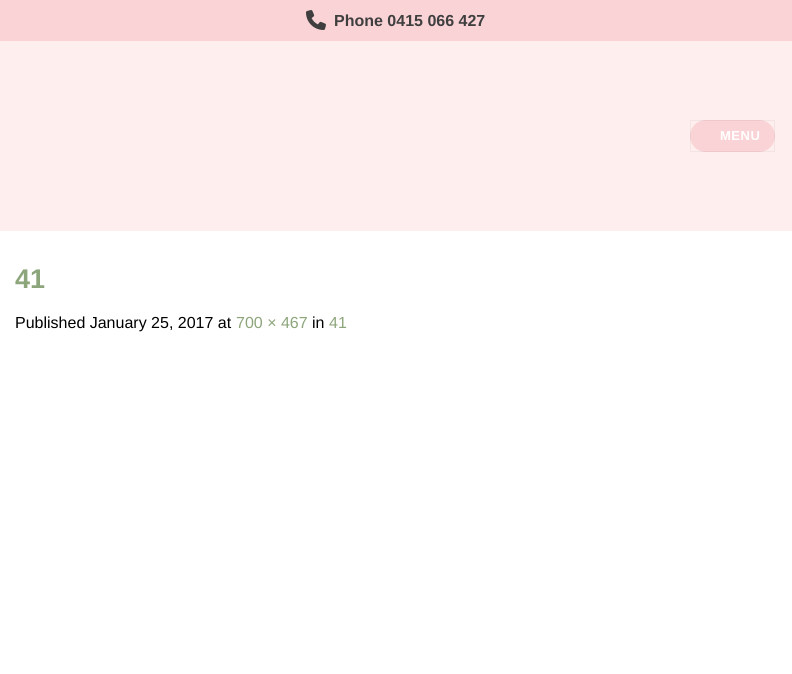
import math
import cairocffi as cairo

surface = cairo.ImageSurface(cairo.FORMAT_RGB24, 792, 674)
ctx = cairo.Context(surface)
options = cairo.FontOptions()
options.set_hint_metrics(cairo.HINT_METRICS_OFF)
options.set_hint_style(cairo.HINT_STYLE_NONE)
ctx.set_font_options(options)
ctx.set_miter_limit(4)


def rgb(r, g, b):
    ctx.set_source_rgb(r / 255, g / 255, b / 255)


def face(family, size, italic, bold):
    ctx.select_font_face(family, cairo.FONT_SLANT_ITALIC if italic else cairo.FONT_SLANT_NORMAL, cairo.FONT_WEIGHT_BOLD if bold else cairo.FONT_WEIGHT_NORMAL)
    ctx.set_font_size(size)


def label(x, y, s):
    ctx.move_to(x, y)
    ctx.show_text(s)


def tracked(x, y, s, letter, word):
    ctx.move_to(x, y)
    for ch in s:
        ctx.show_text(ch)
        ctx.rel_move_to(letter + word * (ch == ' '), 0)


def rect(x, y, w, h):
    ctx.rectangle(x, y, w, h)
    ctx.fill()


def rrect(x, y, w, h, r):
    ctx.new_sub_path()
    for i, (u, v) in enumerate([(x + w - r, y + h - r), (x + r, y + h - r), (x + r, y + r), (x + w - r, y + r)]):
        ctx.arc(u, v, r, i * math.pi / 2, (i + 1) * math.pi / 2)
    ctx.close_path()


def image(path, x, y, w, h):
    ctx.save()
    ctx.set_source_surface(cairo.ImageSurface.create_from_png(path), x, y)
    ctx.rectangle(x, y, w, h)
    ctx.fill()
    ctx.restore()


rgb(255, 255, 255)
ctx.paint()
rgb(250, 211, 214)
rect(0, 0, 792, 41)
image('image0.png', 306, 10, 20, 20)
face('Liberation Sans', 16, 0, 1)
rgb(63, 63, 63)
label(334, 26, 'Phone 0415 066 427')
rgb(255, 238, 238)
rect(0, 41, 792, 190)
rgb(250, 211, 214)
rrect(690, 120, 85, 32, 16)
ctx.fill()
ctx.rectangle(690.5, 120.5, 84, 31)
ctx.set_source_rgba(0, 0, 0, 0.05)
ctx.set_line_width(1)
ctx.stroke()
face('Liberation Sans', 13, 0, 1)
rgb(255, 255, 255)
tracked(720, 140, 'MENU', 0.5, 0)
face('Liberation Sans', 27, 0, 1)
rgb(141, 165, 122)
label(15, 288, '41')
face('Liberation Sans', 16, 0, 0)
rgb(0, 0, 0)
label(15, 328, 'Published January 25, 2017 at')
rgb(141, 165, 122)
label(236, 328, '700 × 467')
rgb(0, 0, 0)
label(312, 328, 'in')
rgb(141, 165, 122)
label(329, 328, '41')
surface.write_to_png('render.png')
